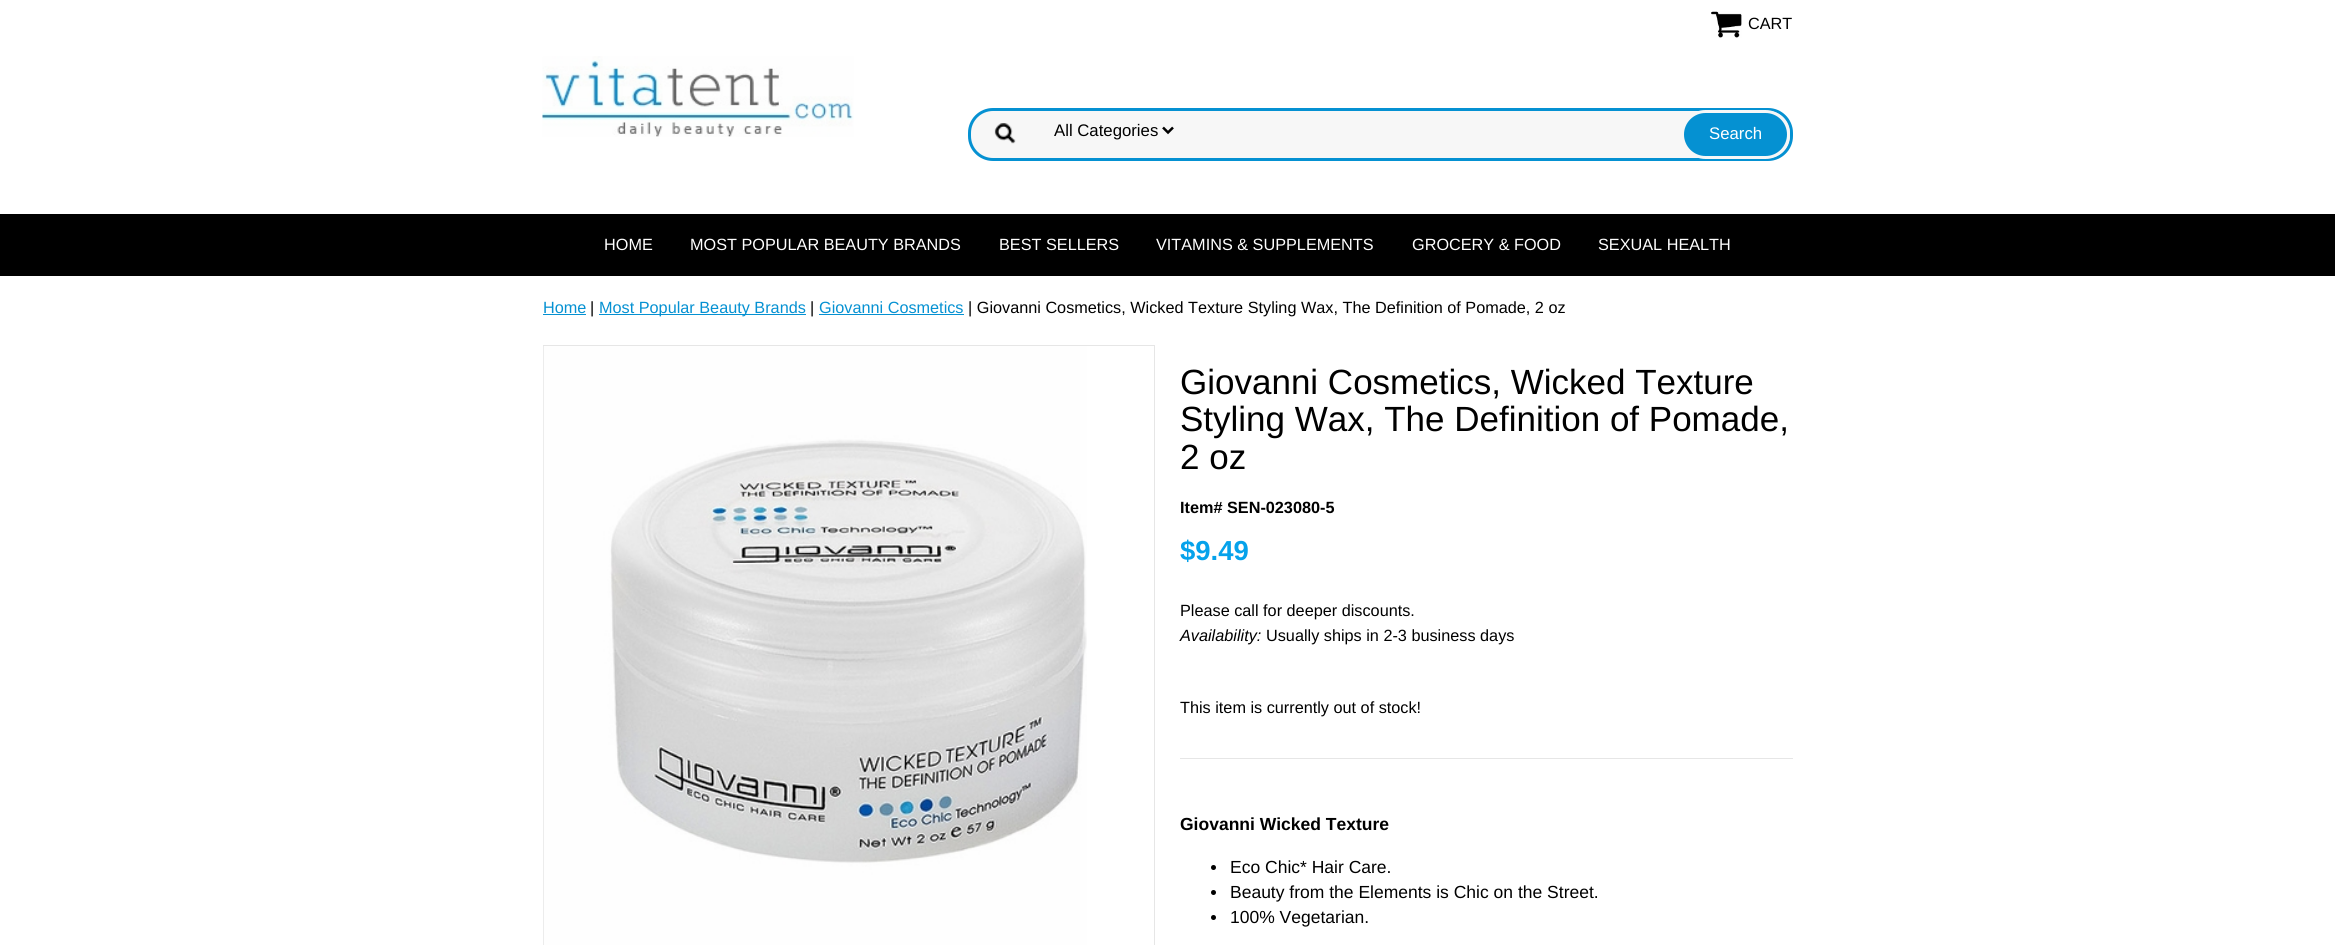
import math
import cairocffi as cairo

surface = cairo.ImageSurface(cairo.FORMAT_RGB24, 2335, 945)
ctx = cairo.Context(surface)
options = cairo.FontOptions()
options.set_hint_metrics(cairo.HINT_METRICS_OFF)
options.set_hint_style(cairo.HINT_STYLE_NONE)
ctx.set_font_options(options)
ctx.set_miter_limit(4)


def rgb(r, g, b):
    ctx.set_source_rgb(r / 255, g / 255, b / 255)


def face(family, size, italic, bold):
    ctx.select_font_face(family, cairo.FONT_SLANT_ITALIC if italic else cairo.FONT_SLANT_NORMAL, cairo.FONT_WEIGHT_BOLD if bold else cairo.FONT_WEIGHT_NORMAL)
    ctx.set_font_size(size)


def label(x, y, s):
    ctx.move_to(x, y)
    ctx.show_text(s)


def rect(x, y, w, h):
    ctx.rectangle(x, y, w, h)
    ctx.fill()


def rrect(x, y, w, h, r):
    ctx.new_sub_path()
    for i, (u, v) in enumerate([(x + w - r, y + h - r), (x + r, y + h - r), (x + r, y + r), (x + w - r, y + r)]):
        ctx.arc(u, v, r, i * math.pi / 2, (i + 1) * math.pi / 2)
    ctx.close_path()


def image(path, x, y, w, h):
    ctx.save()
    ctx.set_source_surface(cairo.ImageSurface.create_from_png(path), x, y)
    ctx.rectangle(x, y, w, h)
    ctx.fill()
    ctx.restore()


rgb(255, 255, 255)
ctx.paint()
image('image0.png', 1711, 11, 31, 27)
face('Liberation Sans', 16.25, 0, 0)
rgb(0, 0, 0)
label(1748, 29, 'CART')
image('image1.png', 542, 56, 312, 81)
rgb(247, 247, 247)
rrect(968, 108, 825, 53, 25)
ctx.fill()
image('image2.png', 994, 123, 22, 21)
rrect(969.5, 109.5, 822, 50, 23.5)
rgb(5, 145, 210)
ctx.set_line_width(3)
ctx.stroke()
ctx.new_path()
ctx.move_to(1163, 127.5)
ctx.line_to(1168, 132.5)
ctx.line_to(1173, 127.5)
rgb(0, 0, 0)
ctx.set_line_width(2.5)
ctx.stroke()
face('Liberation Sans', 16.75, 0, 0)
label(1054, 136, 'All Categories')
rgb(5, 145, 210)
rrect(1682.5, 111.5, 106, 46, 23)
ctx.fill_preserve()
rgb(247, 247, 247)
ctx.set_line_width(3)
ctx.stroke()
rgb(255, 255, 255)
label(1709, 139, 'Search')
rgb(0, 0, 0)
rect(0, 214, 2335, 62)
face('Liberation Sans', 16.25, 0, 0)
rgb(255, 255, 255)
label(604, 250, 'HOME')
label(690, 250, 'MOST POPULAR BEAUTY BRANDS')
label(999, 250, 'BEST SELLERS')
label(1156, 250, 'VITAMINS & SUPPLEMENTS')
label(1412, 250, 'GROCERY & FOOD')
label(1598, 250, 'SEXUAL HEALTH')
rgb(5, 145, 210)
label(543, 313, 'Home')
rect(543, 314, 43, 1)
rgb(0, 0, 0)
label(590, 313, '|')
rgb(5, 145, 210)
rect(599, 314, 207, 1)
label(599, 313, 'Most Popular Beauty Brands')
rgb(0, 0, 0)
label(810, 313, '|')
rgb(5, 145, 210)
label(819, 313, 'Giovanni Cosmetics')
rect(819, 314, 145, 1)
rgb(0, 0, 0)
label(968, 313, '| Giovanni Cosmetics, Wicked Texture Styling Wax, The Definition of Pomade, 2 oz')
ctx.rectangle(543.5, 345.5, 611, 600)
rgb(230, 230, 230)
ctx.set_line_width(1)
ctx.stroke()
image('image3.png', 543, 346, 544, 599)
face('Liberation Sans', 35, 0, 0)
rgb(0, 0, 0)
label(1180, 394, 'Giovanni Cosmetics, Wicked Texture')
label(1180, 431, 'Styling Wax, The Definition of Pomade,')
label(1180, 469, '2 oz')
face('Liberation Sans', 16.25, 0, 1)
label(1180, 513, 'Item# SEN-023080-5')
face('Liberation Sans', 27.5, 0, 1)
rgb(5, 162, 235)
label(1180, 560, '$9.49')
face('Liberation Sans', 16.25, 0, 0)
rgb(0, 0, 0)
label(1180, 616, 'Please call for deeper discounts.')
face('Liberation Sans', 16.25, 1, 0)
label(1180, 641, 'Availability:')
face('Liberation Sans', 16.25, 0, 0)
label(1266, 641, 'Usually ships in 2-3 business days')
label(1180, 713, 'This item is currently out of stock!')
rgb(230, 230, 230)
rect(1180, 758, 613, 1)
face('Liberation Sans', 17.5, 0, 1)
rgb(0, 0, 0)
label(1180, 830, 'Giovanni Wicked Texture')
ctx.new_path()
ctx.arc(1213.5, 867.5, 2.5, 0, 2 * math.pi)
ctx.fill()
face('Liberation Sans', 17.5, 0, 0)
label(1230, 873, 'Eco Chic* Hair Care.')
ctx.new_path()
ctx.arc(1213.5, 892.5, 2.5, 0, 2 * math.pi)
ctx.fill()
label(1230, 898, 'Beauty from the Elements is Chic on the Street.')
ctx.new_path()
ctx.arc(1213.5, 917.5, 2.5, 0, 2 * math.pi)
ctx.fill()
label(1230, 923, '100% Vegetarian.')
surface.write_to_png('render.png')
